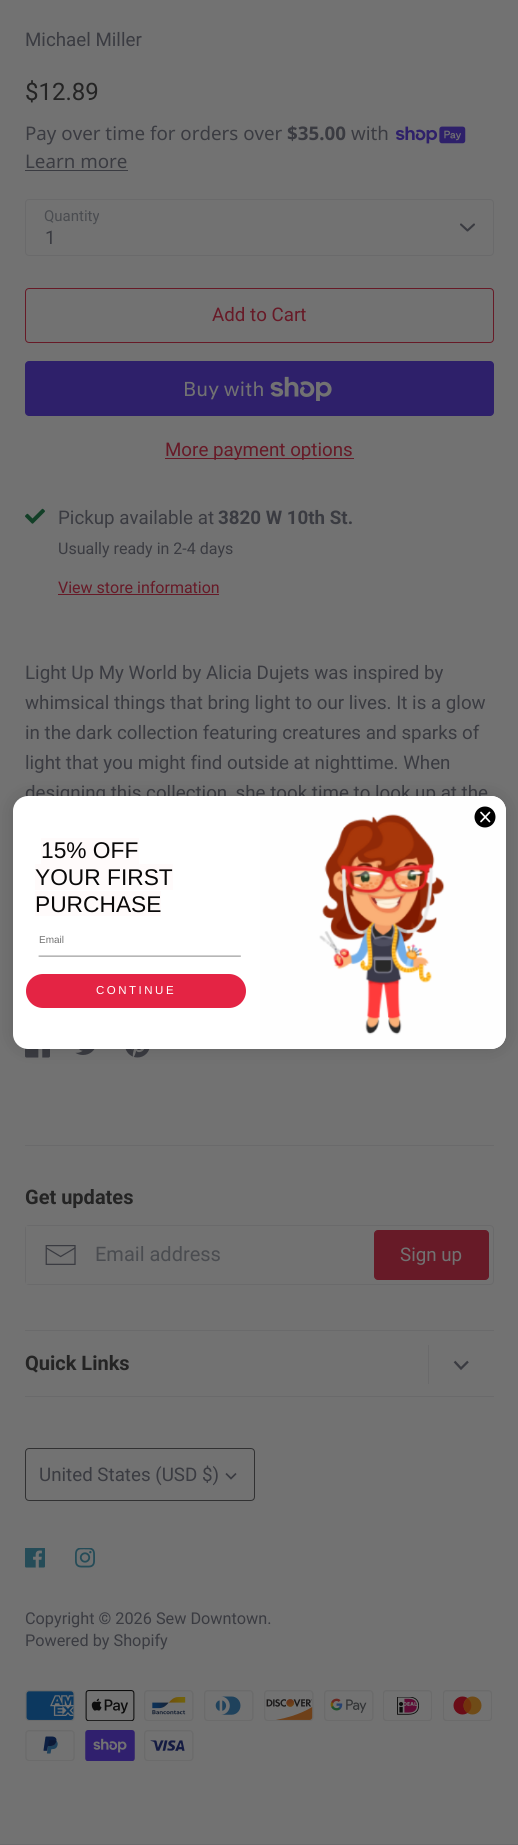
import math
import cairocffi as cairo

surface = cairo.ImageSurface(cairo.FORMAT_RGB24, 518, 1845)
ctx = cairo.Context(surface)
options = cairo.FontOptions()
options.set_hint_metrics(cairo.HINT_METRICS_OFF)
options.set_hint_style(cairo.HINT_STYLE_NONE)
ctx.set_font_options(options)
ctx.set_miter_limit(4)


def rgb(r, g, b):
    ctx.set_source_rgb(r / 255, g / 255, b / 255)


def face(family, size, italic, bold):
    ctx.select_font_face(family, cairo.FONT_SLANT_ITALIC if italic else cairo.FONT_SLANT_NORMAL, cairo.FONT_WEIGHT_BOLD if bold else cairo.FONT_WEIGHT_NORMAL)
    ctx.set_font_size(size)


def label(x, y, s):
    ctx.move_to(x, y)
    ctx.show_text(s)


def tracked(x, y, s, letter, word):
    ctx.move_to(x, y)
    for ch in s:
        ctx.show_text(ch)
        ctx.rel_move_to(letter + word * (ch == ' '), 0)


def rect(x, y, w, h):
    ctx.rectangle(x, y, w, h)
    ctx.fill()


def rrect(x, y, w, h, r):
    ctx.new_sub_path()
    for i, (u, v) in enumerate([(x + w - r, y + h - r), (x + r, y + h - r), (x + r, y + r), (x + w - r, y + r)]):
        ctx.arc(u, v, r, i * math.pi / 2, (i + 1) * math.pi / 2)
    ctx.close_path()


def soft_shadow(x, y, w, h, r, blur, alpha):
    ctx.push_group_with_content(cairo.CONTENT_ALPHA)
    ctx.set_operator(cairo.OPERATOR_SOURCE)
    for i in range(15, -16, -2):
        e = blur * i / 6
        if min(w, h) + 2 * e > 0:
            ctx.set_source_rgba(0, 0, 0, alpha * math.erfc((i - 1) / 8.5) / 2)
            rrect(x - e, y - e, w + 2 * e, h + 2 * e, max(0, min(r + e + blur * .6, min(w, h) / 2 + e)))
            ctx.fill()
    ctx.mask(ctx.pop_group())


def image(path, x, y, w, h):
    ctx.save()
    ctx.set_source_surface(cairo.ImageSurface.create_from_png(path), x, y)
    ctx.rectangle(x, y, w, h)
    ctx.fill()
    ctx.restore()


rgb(114, 114, 114)
ctx.paint()
face('Roboto', 18.75, 0, 0)
rgb(58, 59, 65)
label(25, 46, 'Michael Miller')
face('Roboto', 24, 0, 0)
rgb(36, 36, 36)
label(25, 100, '$12.89')
face('Noto Sans', 18.75, 0, 0)
rgb(58, 59, 65)
label(25, 140, 'Pay over time for orders over')
face('Noto Sans', 18.75, 0, 1)
label(287, 140, '$35.00')
face('Noto Sans', 18.75, 0, 0)
label(351, 140, 'with')
image('image0.png', 396, 126, 70, 18)
label(25, 168, 'Learn more')
rect(25, 170, 103, 1)
face('Roboto', 15, 0, 0)
rgb(74, 76, 80)
label(44, 221, 'Quantity')
rrect(25.5, 199.5, 468, 56, 3.5)
rgb(106, 106, 107)
ctx.set_line_width(1)
ctx.stroke()
ctx.new_path()
ctx.move_to(461, 224.5)
ctx.line_to(467.5, 230.5)
ctx.line_to(474, 224.5)
rgb(58, 59, 65)
ctx.set_line_width(2.1)
ctx.set_line_cap(cairo.LINE_CAP_ROUND)
ctx.set_line_join(cairo.LINE_JOIN_ROUND)
ctx.stroke()
face('Roboto', 18.75, 0, 0)
label(45, 244, '1')
rrect(25.5, 288.5, 468, 54, 3.5)
rgb(103, 26, 39)
ctx.set_line_width(1)
ctx.set_line_cap(cairo.LINE_CAP_BUTT)
ctx.set_line_join(cairo.LINE_JOIN_MITER)
ctx.stroke()
label(212, 321, 'Add to Cart')
rgb(46, 32, 106)
rrect(25, 361, 469, 55, 4)
ctx.fill()
face('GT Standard', 20, 0, 0)
rgb(114, 114, 114)
label(183, 396, 'Buy with')
image('image1.png', 270, 376, 62, 25)
rgb(103, 26, 39)
rect(165, 458, 189, 1)
face('Roboto', 18.75, 0, 0)
label(165, 456, 'More payment options')
image('image2.png', 25, 508, 20, 16)
rgb(58, 59, 65)
label(58, 524, 'Pickup available at')
face('Roboto', 18.75, 0, 1)
label(218, 524, '3820 W 10th St.')
face('Roboto', 16, 0, 0)
label(58, 554, 'Usually ready in 2-4 days')
rgb(103, 26, 39)
label(58, 593, 'View store information')
rect(58, 594, 161, 1)
face('Roboto', 18.75, 0, 0)
rgb(58, 59, 65)
label(25, 679, 'Light Up My World by Alicia Dujets was inspired by')
label(25, 709, 'whimsical things that bring light to our lives. It is a glow')
label(25, 739, 'in the dark collection featuring creatures and sparks of')
label(25, 769, 'light that you might find outside at nighttime. When')
label(25, 799, 'designing this collection, she took time to look up at the')
image('image3.png', 25, 1048, 25, 10)
image('image4.png', 75, 1049, 20, 6)
image('image5.png', 125, 1049, 25, 9)
rgb(0, 0, 0)
soft_shadow(13, 796, 493, 253, 15, 9.5, 0.15)
rgb(255, 255, 255)
rrect(13, 796, 493, 253, 15)
ctx.fill()
rgb(254, 254, 254)
ctx.new_path()
ctx.move_to(260, 796)
ctx.line_to(491, 796)
ctx.curve_to(499.5, 796, 506, 802.5, 506, 811)
ctx.line_to(506, 1034)
ctx.curve_to(506, 1042.5, 499.5, 1049, 491, 1049)
ctx.line_to(260, 1049)
ctx.close_path()
ctx.fill()
rgb(0, 0, 0)
ctx.arc(485, 817, 10.5, 0, 2 * math.pi)
ctx.fill()
ctx.new_path()
ctx.move_to(481, 812.5)
ctx.line_to(489.5, 821.5)
ctx.move_to(481, 821.5)
ctx.line_to(489.5, 812.5)
ctx.close_path()
rgb(255, 255, 255)
ctx.set_line_width(1.7)
ctx.set_line_cap(cairo.LINE_CAP_ROUND)
ctx.set_line_join(cairo.LINE_JOIN_ROUND)
ctx.stroke()
rgb(255, 251, 251)
rect(41, 838, 98, 26)
face('Liberation Sans', 22.75, 0, 0)
rgb(10, 9, 9)
label(41, 858, '15% OFF')
rgb(255, 251, 251)
rect(35, 864, 138, 26)
rgb(10, 9, 9)
label(35, 885, 'YOUR FIRST')
rgb(255, 251, 251)
rect(35, 891, 126, 25)
rgb(10, 9, 9)
label(35, 912, 'PURCHASE')
face('Liberation Sans', 10, 0, 0)
rgb(114, 114, 114)
label(39, 943, 'Email')
image('image6.png', 38, 955, 203, 2)
rgb(228, 36, 68)
rrect(26, 974, 220, 34, 17)
ctx.fill()
face('Liberation Sans', 11.5, 0, 0)
rgb(255, 255, 255)
tracked(96, 994, 'CONTINUE', 2.5, 0)
image('image7.png', 319, 814, 126, 221)
rgb(106, 106, 107)
rect(25, 1145, 469, 1)
rect(25, 1330, 469, 1)
face('Roboto', 20, 0, 1)
rgb(36, 36, 36)
label(25, 1204, 'Get updates')
rrect(25.5, 1225.5, 468, 59, 3.5)
rgb(106, 106, 107)
ctx.set_line_width(1)
ctx.set_line_cap(cairo.LINE_CAP_BUTT)
ctx.set_line_join(cairo.LINE_JOIN_MITER)
ctx.stroke()
image('image8.png', 45, 1245, 31, 20)
rgb(114, 114, 114)
rect(26, 1226, 2, 58)
face('Roboto', 20, 0, 0)
rgb(74, 76, 80)
label(95, 1261, 'Email address')
rgb(103, 26, 39)
rrect(374.5, 1230.5, 114, 49, 3.5)
ctx.fill_preserve()
ctx.stroke()
face('Roboto', 18.75, 0, 0)
rgb(114, 114, 114)
label(400, 1261, 'Sign up')
rgb(106, 106, 107)
rect(25, 1396, 469, 1)
face('Roboto', 20, 0, 1)
rgb(36, 36, 36)
label(25, 1370, 'Quick Links')
rgb(106, 106, 107)
rect(428, 1345, 1, 39)
ctx.new_path()
ctx.move_to(454.5, 1361.5)
ctx.line_to(461, 1368.5)
ctx.line_to(468, 1361.5)
rgb(58, 59, 65)
ctx.set_line_width(2.3)
ctx.stroke()
rrect(25.5, 1448.5, 229, 52, 3.5)
rgb(49, 49, 50)
ctx.set_line_width(1)
ctx.stroke()
face('Roboto', 18.75, 0, 0)
rgb(58, 59, 65)
label(39, 1481, 'United States (USD $)')
ctx.new_path()
ctx.move_to(226, 1473.5)
ctx.line_to(231, 1478.5)
ctx.line_to(236, 1473.5)
ctx.set_line_width(1.7)
ctx.stroke()
image('image9.png', 25, 1548, 20, 20)
image('image10.png', 75, 1548, 20, 20)
face('Roboto', 16.25, 0, 0)
label(25, 1624, 'Copyright © 2026 Sew Downtown.')
label(25, 1646, 'Powered by Shopify')
image('image11.png', 25, 1690, 50, 31)
image('image12.png', 85, 1690, 50, 31)
image('image13.png', 144, 1690, 50, 31)
image('image14.png', 204, 1690, 50, 31)
image('image15.png', 264, 1690, 50, 31)
image('image16.png', 324, 1690, 50, 31)
image('image17.png', 383, 1690, 49, 31)
image('image18.png', 443, 1690, 49, 31)
image('image19.png', 25, 1730, 50, 31)
image('image20.png', 85, 1730, 50, 31)
image('image21.png', 144, 1730, 50, 31)
rgb(106, 106, 107)
rect(0, 1844, 518, 1)
surface.write_to_png('render.png')
